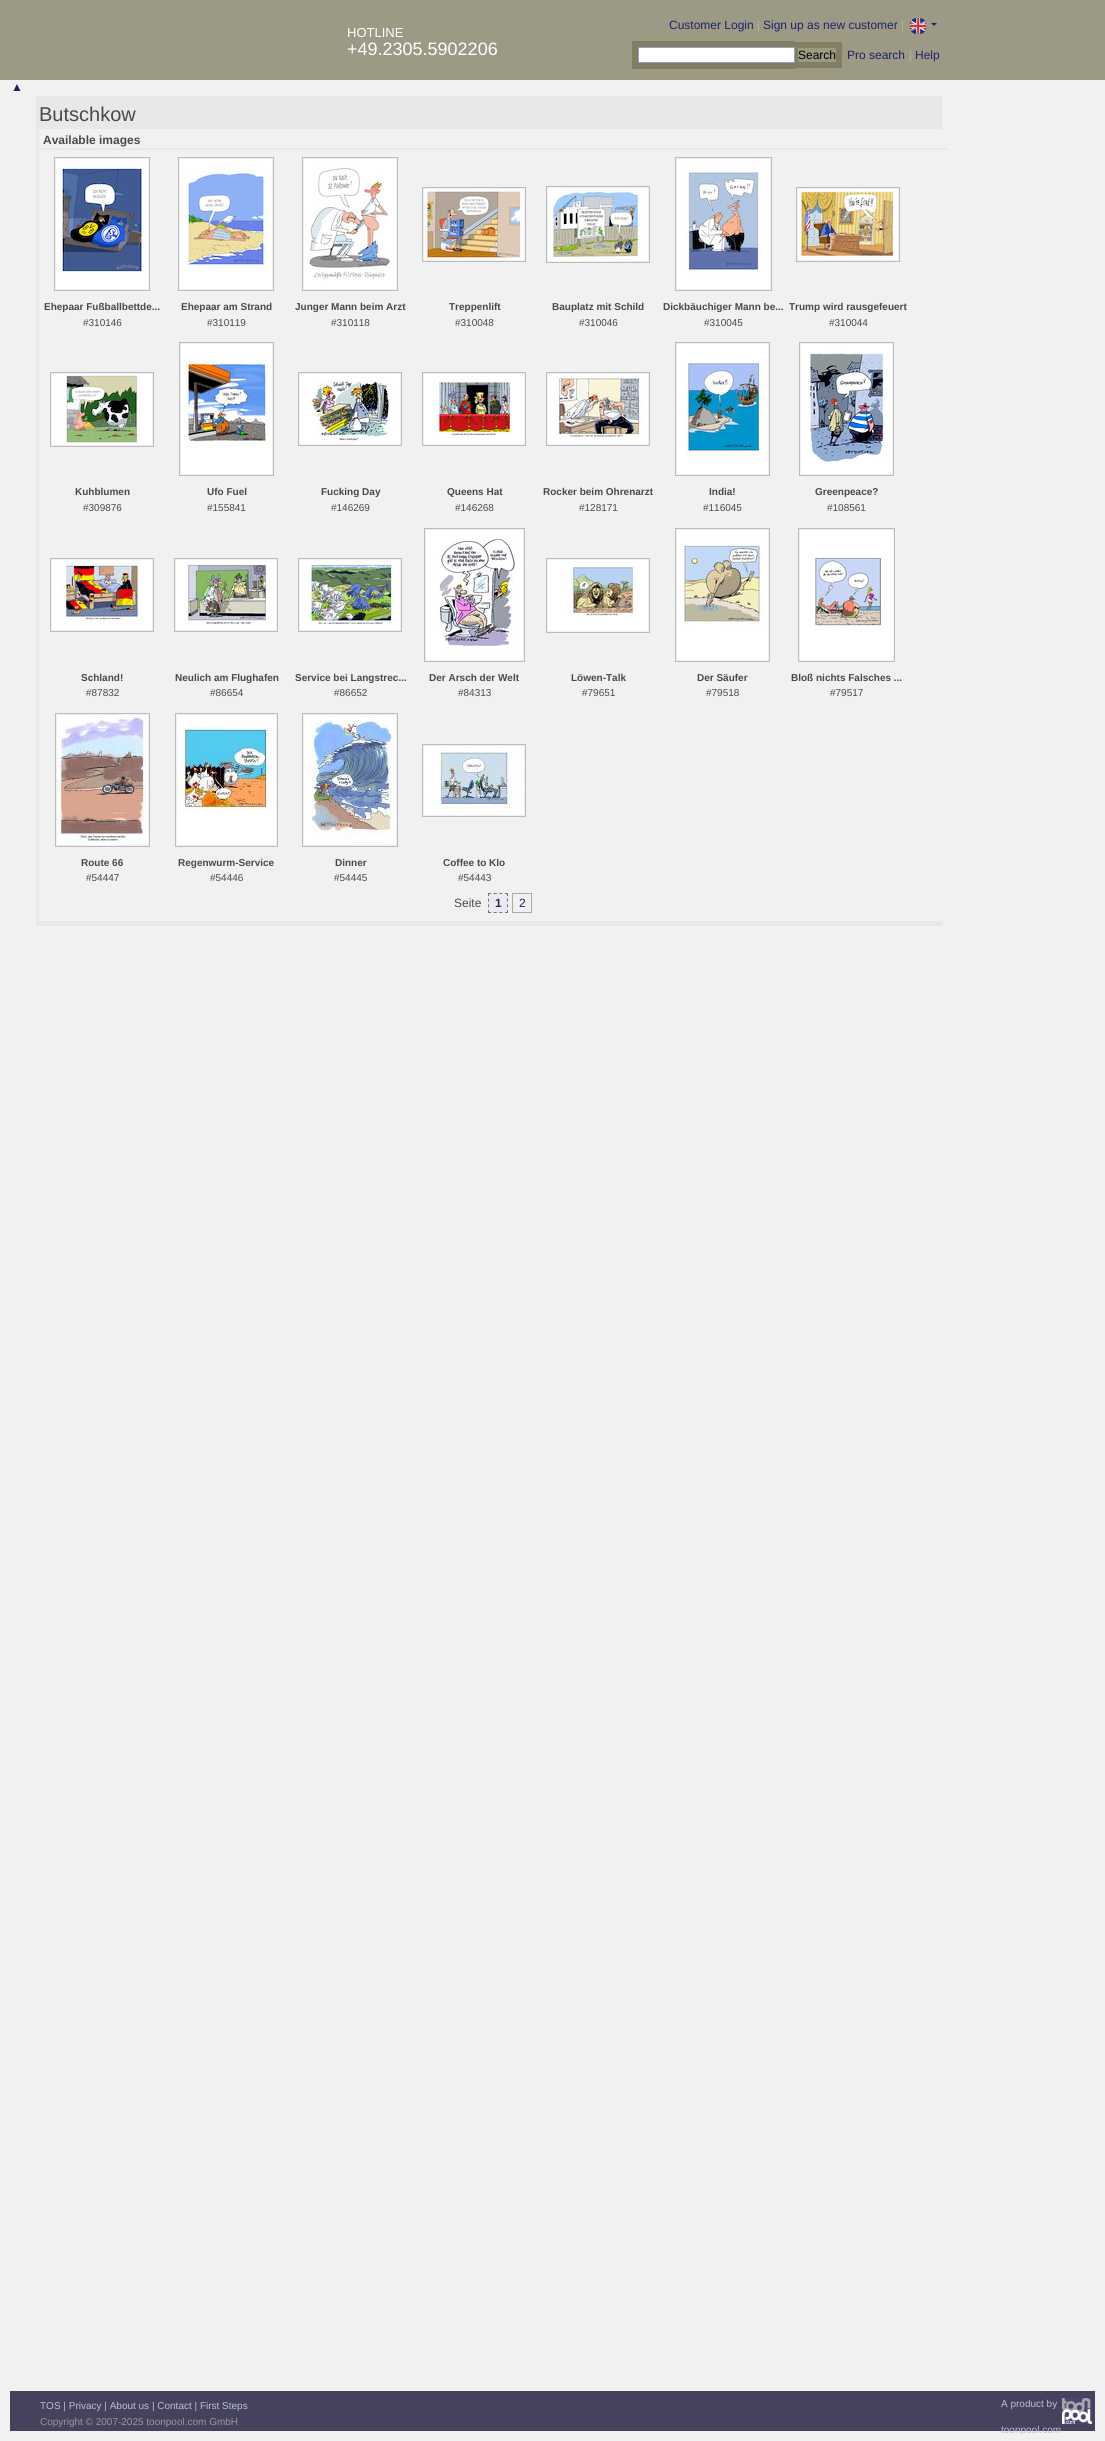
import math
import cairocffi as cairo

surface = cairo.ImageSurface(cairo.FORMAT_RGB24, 1105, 2441)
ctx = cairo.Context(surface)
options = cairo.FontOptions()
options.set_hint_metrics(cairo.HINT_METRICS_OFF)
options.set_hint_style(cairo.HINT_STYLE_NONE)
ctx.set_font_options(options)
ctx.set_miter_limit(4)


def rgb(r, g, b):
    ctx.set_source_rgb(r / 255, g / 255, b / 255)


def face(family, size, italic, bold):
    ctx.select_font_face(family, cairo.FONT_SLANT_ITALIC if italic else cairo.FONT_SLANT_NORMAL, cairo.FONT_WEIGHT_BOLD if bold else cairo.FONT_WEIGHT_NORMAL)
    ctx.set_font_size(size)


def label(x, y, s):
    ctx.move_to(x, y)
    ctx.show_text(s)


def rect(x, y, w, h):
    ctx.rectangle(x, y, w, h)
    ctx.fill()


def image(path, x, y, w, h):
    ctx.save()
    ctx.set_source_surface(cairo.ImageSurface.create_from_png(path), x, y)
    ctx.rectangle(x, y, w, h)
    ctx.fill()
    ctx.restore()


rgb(241, 241, 241)
ctx.paint()
rgb(156, 153, 132)
rect(0, 0, 1105, 80)
face('Liberation Sans', 13, 0, 0)
rgb(255, 255, 255)
label(347, 37, 'HOTLINE')
face('Liberation Sans', 18, 0, 0)
label(347, 55, '+49.2305.5902206')
face('Liberation Sans', 12, 0, 0)
rgb(29, 36, 108)
label(669, 29, 'Customer Login')
rgb(181, 178, 155)
label(757, 29, '|')
rgb(29, 36, 108)
label(763, 29, 'Sign up as new customer')
rgb(181, 178, 155)
label(901, 29, '|')
image('image0.png', 910, 18, 16, 16)
rgb(29, 36, 108)
ctx.new_path()
ctx.move_to(931, 23)
ctx.line_to(937, 23)
ctx.line_to(934, 26)
ctx.close_path()
ctx.fill()
rgb(130, 126, 99)
rect(632, 41, 163, 28)
rect(795, 42, 47, 26)
rgb(255, 255, 255)
ctx.rectangle(638.5, 47.5, 156, 15)
ctx.fill_preserve()
rgb(153, 156, 187)
ctx.set_line_width(1)
ctx.stroke()
rgb(156, 153, 132)
rect(798, 48, 38, 14)
rgb(0, 0, 0)
label(798, 59, 'Search')
rgb(29, 36, 108)
label(847, 59, 'Pro search')
rgb(181, 178, 155)
label(909, 59, '|')
rgb(29, 36, 108)
label(915, 59, 'Help')
label(11, 91, '▲')
rgb(232, 232, 232)
rect(36, 96, 906, 830)
face('Liberation Sans', 20, 0, 0)
rgb(73, 73, 73)
label(39, 121, 'Butschkow')
rgb(241, 241, 241)
rect(39, 129, 903, 792)
face('Liberation Sans', 12, 0, 1)
rgb(73, 73, 73)
label(43, 144, 'Available images')
rgb(232, 232, 232)
rect(39, 148, 908, 2)
ctx.rectangle(54.5, 157.5, 95, 133)
rgb(187, 187, 187)
ctx.stroke()
image('image1.png', 56, 159, 92, 130)
face('Liberation Sans', 10, 0, 1)
rgb(73, 73, 73)
label(44, 310, 'Ehepaar Fußballbettde...')
face('Liberation Sans', 10, 0, 0)
label(83, 326, '#310146')
ctx.rectangle(178.5, 157.5, 95, 133)
rgb(187, 187, 187)
ctx.stroke()
image('image2.png', 180, 159, 92, 130)
face('Liberation Sans', 10, 0, 1)
rgb(73, 73, 73)
label(181, 310, 'Ehepaar am Strand')
face('Liberation Sans', 10, 0, 0)
label(207, 326, '#310119')
ctx.rectangle(302.5, 157.5, 95, 133)
rgb(187, 187, 187)
ctx.stroke()
image('image3.png', 304, 159, 92, 130)
face('Liberation Sans', 10, 0, 1)
rgb(73, 73, 73)
label(295, 310, 'Junger Mann beim Arzt')
face('Liberation Sans', 10, 0, 0)
label(331, 326, '#310118')
ctx.rectangle(422.5, 187.5, 103, 74)
rgb(187, 187, 187)
ctx.stroke()
image('image4.png', 424, 189, 100, 71)
face('Liberation Sans', 10, 0, 1)
rgb(73, 73, 73)
label(449, 310, 'Treppenlift')
face('Liberation Sans', 10, 0, 0)
label(455, 326, '#310048')
ctx.rectangle(546.5, 186.5, 103, 76)
rgb(187, 187, 187)
ctx.stroke()
image('image5.png', 548, 188, 100, 73)
face('Liberation Sans', 10, 0, 1)
rgb(73, 73, 73)
label(552, 310, 'Bauplatz mit Schild')
face('Liberation Sans', 10, 0, 0)
label(579, 326, '#310046')
ctx.rectangle(675.5, 157.5, 96, 133)
rgb(187, 187, 187)
ctx.stroke()
image('image6.png', 677, 159, 93, 130)
face('Liberation Sans', 10, 0, 1)
rgb(73, 73, 73)
label(663, 310, 'Dickbäuchiger Mann be...')
face('Liberation Sans', 10, 0, 0)
label(704, 326, '#310045')
ctx.rectangle(796.5, 187.5, 103, 74)
rgb(187, 187, 187)
ctx.stroke()
image('image7.png', 798, 189, 100, 71)
face('Liberation Sans', 10, 0, 1)
rgb(73, 73, 73)
label(789, 310, 'Trump wird rausgefeuert')
face('Liberation Sans', 10, 0, 0)
label(829, 326, '#310044')
ctx.rectangle(50.5, 372.5, 103, 74)
rgb(187, 187, 187)
ctx.stroke()
image('image8.png', 52, 374, 100, 71)
face('Liberation Sans', 10, 0, 1)
rgb(73, 73, 73)
label(75, 495, 'Kuhblumen')
face('Liberation Sans', 10, 0, 0)
label(83, 511, '#309876')
ctx.rectangle(179.5, 342.5, 94, 133)
rgb(187, 187, 187)
ctx.stroke()
image('image9.png', 181, 344, 91, 130)
face('Liberation Sans', 10, 0, 1)
rgb(73, 73, 73)
label(207, 495, 'Ufo Fuel')
face('Liberation Sans', 10, 0, 0)
label(207, 511, '#155841')
ctx.rectangle(298.5, 372.5, 103, 73)
rgb(187, 187, 187)
ctx.stroke()
image('image10.png', 300, 374, 100, 70)
face('Liberation Sans', 10, 0, 1)
rgb(73, 73, 73)
label(321, 495, 'Fucking Day')
face('Liberation Sans', 10, 0, 0)
label(331, 511, '#146269')
ctx.rectangle(422.5, 372.5, 103, 73)
rgb(187, 187, 187)
ctx.stroke()
image('image11.png', 424, 374, 100, 70)
face('Liberation Sans', 10, 0, 1)
rgb(73, 73, 73)
label(447, 495, 'Queens Hat')
face('Liberation Sans', 10, 0, 0)
label(455, 511, '#146268')
ctx.rectangle(546.5, 372.5, 103, 73)
rgb(187, 187, 187)
ctx.stroke()
image('image12.png', 548, 374, 100, 70)
face('Liberation Sans', 10, 0, 1)
rgb(73, 73, 73)
label(543, 495, 'Rocker beim Ohrenarzt')
face('Liberation Sans', 10, 0, 0)
label(579, 511, '#128171')
ctx.rectangle(675.5, 342.5, 94, 133)
rgb(187, 187, 187)
ctx.stroke()
image('image13.png', 677, 344, 91, 130)
face('Liberation Sans', 10, 0, 1)
rgb(73, 73, 73)
label(709, 495, 'India!')
face('Liberation Sans', 10, 0, 0)
label(703, 511, '#116045')
ctx.rectangle(799.5, 342.5, 94, 133)
rgb(187, 187, 187)
ctx.stroke()
image('image14.png', 801, 344, 91, 130)
face('Liberation Sans', 10, 0, 1)
rgb(73, 73, 73)
label(815, 495, 'Greenpeace?')
face('Liberation Sans', 10, 0, 0)
label(827, 511, '#108561')
ctx.rectangle(50.5, 558.5, 103, 73)
rgb(187, 187, 187)
ctx.stroke()
image('image15.png', 52, 560, 100, 70)
face('Liberation Sans', 10, 0, 1)
rgb(73, 73, 73)
label(81, 681, 'Schland!')
face('Liberation Sans', 10, 0, 0)
label(86, 696, '#87832')
ctx.rectangle(174.5, 558.5, 103, 73)
rgb(187, 187, 187)
ctx.stroke()
image('image16.png', 176, 560, 100, 70)
face('Liberation Sans', 10, 0, 1)
rgb(73, 73, 73)
label(175, 681, 'Neulich am Flughafen')
face('Liberation Sans', 10, 0, 0)
label(210, 696, '#86654')
ctx.rectangle(298.5, 558.5, 103, 73)
rgb(187, 187, 187)
ctx.stroke()
image('image17.png', 300, 560, 100, 70)
face('Liberation Sans', 10, 0, 1)
rgb(73, 73, 73)
label(295, 681, 'Service bei Langstrec...')
face('Liberation Sans', 10, 0, 0)
label(334, 696, '#86652')
ctx.rectangle(424.5, 528.5, 100, 133)
rgb(187, 187, 187)
ctx.stroke()
image('image18.png', 426, 530, 97, 130)
face('Liberation Sans', 10, 0, 1)
rgb(73, 73, 73)
label(429, 681, 'Der Arsch der Welt')
face('Liberation Sans', 10, 0, 0)
label(458, 696, '#84313')
ctx.rectangle(546.5, 558.5, 103, 74)
rgb(187, 187, 187)
ctx.stroke()
image('image19.png', 548, 560, 100, 71)
face('Liberation Sans', 10, 0, 1)
rgb(73, 73, 73)
label(571, 681, 'Löwen-Talk')
face('Liberation Sans', 10, 0, 0)
label(582, 696, '#79651')
ctx.rectangle(675.5, 528.5, 94, 133)
rgb(187, 187, 187)
ctx.stroke()
image('image20.png', 677, 530, 91, 130)
face('Liberation Sans', 10, 0, 1)
rgb(73, 73, 73)
label(697, 681, 'Der Säufer')
face('Liberation Sans', 10, 0, 0)
label(706, 696, '#79518')
ctx.rectangle(798.5, 528.5, 96, 133)
rgb(187, 187, 187)
ctx.stroke()
image('image21.png', 800, 530, 93, 130)
face('Liberation Sans', 10, 0, 1)
rgb(73, 73, 73)
label(791, 681, 'Bloß nichts Falsches ...')
face('Liberation Sans', 10, 0, 0)
label(830, 696, '#79517')
ctx.rectangle(55.5, 713.5, 94, 133)
rgb(187, 187, 187)
ctx.stroke()
image('image22.png', 57, 715, 91, 130)
face('Liberation Sans', 10, 0, 1)
rgb(73, 73, 73)
label(81, 866, 'Route 66')
face('Liberation Sans', 10, 0, 0)
label(86, 881, '#54447')
ctx.rectangle(175.5, 713.5, 102, 133)
rgb(187, 187, 187)
ctx.stroke()
image('image23.png', 177, 715, 99, 130)
face('Liberation Sans', 10, 0, 1)
rgb(73, 73, 73)
label(178, 866, 'Regenwurm-Service')
face('Liberation Sans', 10, 0, 0)
label(210, 881, '#54446')
ctx.rectangle(302.5, 713.5, 95, 133)
rgb(187, 187, 187)
ctx.stroke()
image('image24.png', 304, 715, 92, 130)
face('Liberation Sans', 10, 0, 1)
rgb(73, 73, 73)
label(335, 866, 'Dinner')
face('Liberation Sans', 10, 0, 0)
label(334, 881, '#54445')
ctx.rectangle(422.5, 744.5, 103, 72)
rgb(187, 187, 187)
ctx.stroke()
image('image25.png', 424, 746, 100, 69)
face('Liberation Sans', 10, 0, 1)
rgb(73, 73, 73)
label(443, 866, 'Coffee to Klo')
face('Liberation Sans', 10, 0, 0)
label(458, 881, '#54443')
face('Liberation Sans', 12, 0, 0)
label(454, 907, 'Seite')
rgb(233, 234, 245)
rect(488, 893, 20, 20)
ctx.new_path()
ctx.move_to(488, 893.5)
ctx.line_to(508, 893.5)
ctx.move_to(507.5, 893)
ctx.line_to(507.5, 913)
ctx.move_to(488, 912.5)
ctx.line_to(508, 912.5)
ctx.move_to(488.5, 893)
ctx.line_to(488.5, 913)
rgb(119, 119, 119)
ctx.set_dash([3, 2.67])
ctx.stroke()
face('Liberation Sans', 12, 0, 1)
rgb(51, 51, 51)
label(495, 907, '1')
ctx.rectangle(512.5, 893.5, 19, 19)
rgb(170, 170, 170)
ctx.set_dash([])
ctx.stroke()
face('Liberation Sans', 12, 0, 0)
rgb(29, 36, 108)
label(519, 907, '2')
rgb(70, 65, 92)
rect(10, 2391, 1085, 40)
face('Liberation Sans', 10, 0, 0)
rgb(182, 194, 216)
label(40, 2409, 'TOS | Privacy | About us | Contact | First Steps')
rgb(153, 153, 153)
label(40, 2425, 'Copyright © 2007-2025 toonpool.com GmbH')
rgb(182, 194, 216)
label(1001, 2407, 'A product by')
image('image26.png', 1062, 2398, 30, 26)
label(1001, 2433, 'toonpool.com')
surface.write_to_png('render.png')
